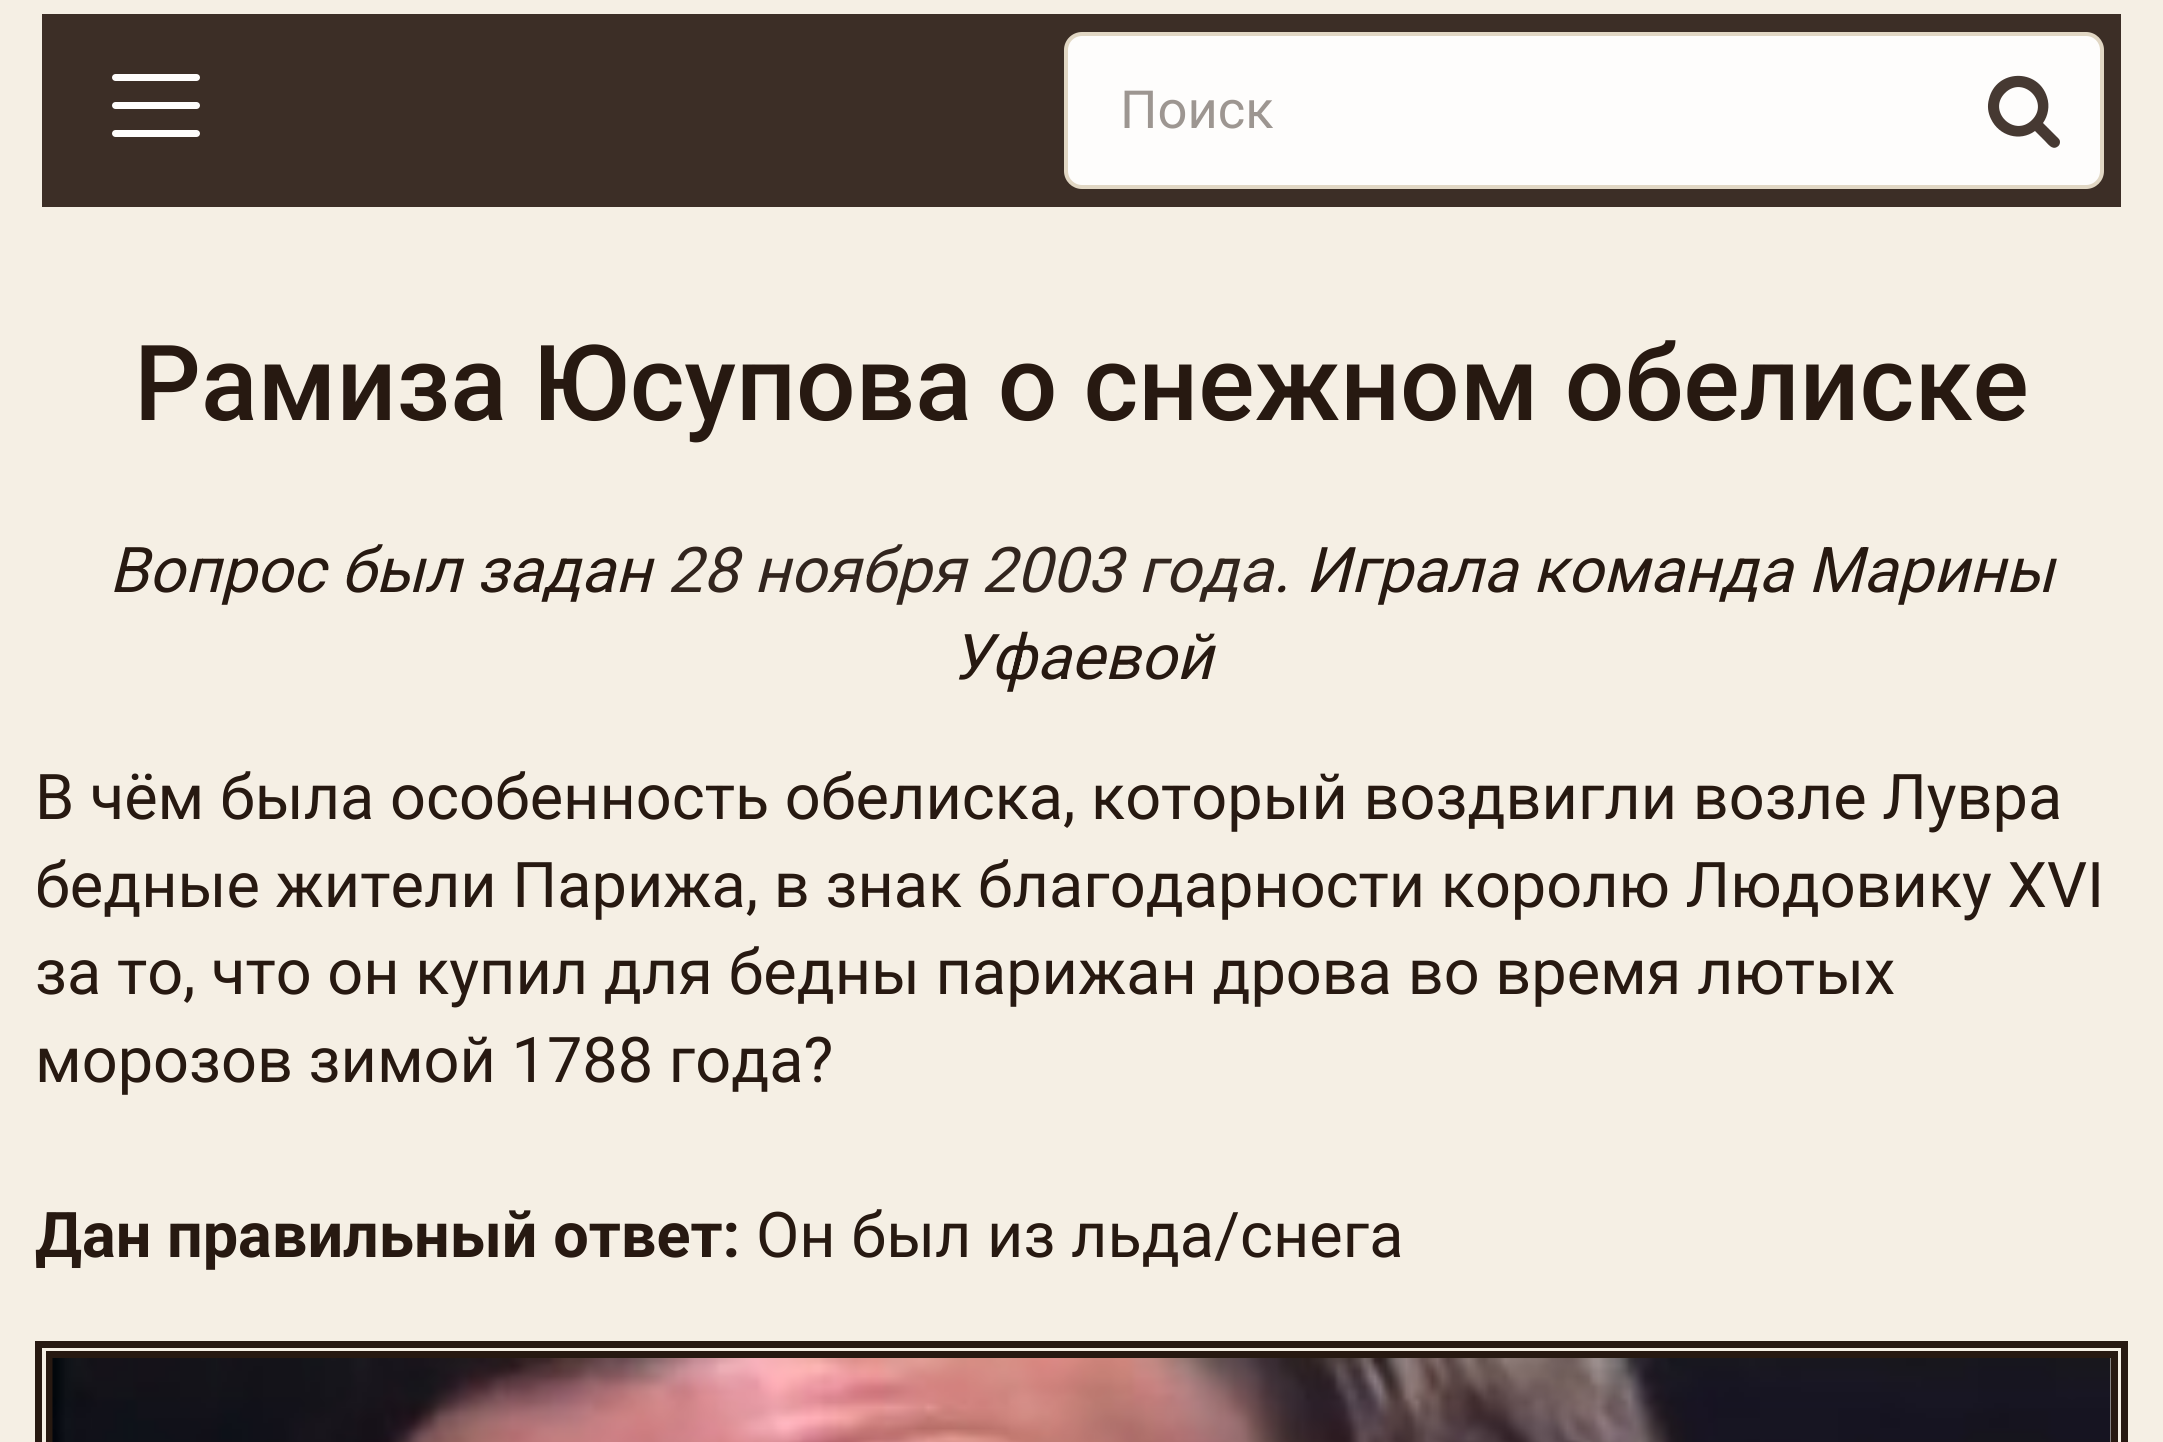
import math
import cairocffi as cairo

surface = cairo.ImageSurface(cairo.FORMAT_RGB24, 2163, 1442)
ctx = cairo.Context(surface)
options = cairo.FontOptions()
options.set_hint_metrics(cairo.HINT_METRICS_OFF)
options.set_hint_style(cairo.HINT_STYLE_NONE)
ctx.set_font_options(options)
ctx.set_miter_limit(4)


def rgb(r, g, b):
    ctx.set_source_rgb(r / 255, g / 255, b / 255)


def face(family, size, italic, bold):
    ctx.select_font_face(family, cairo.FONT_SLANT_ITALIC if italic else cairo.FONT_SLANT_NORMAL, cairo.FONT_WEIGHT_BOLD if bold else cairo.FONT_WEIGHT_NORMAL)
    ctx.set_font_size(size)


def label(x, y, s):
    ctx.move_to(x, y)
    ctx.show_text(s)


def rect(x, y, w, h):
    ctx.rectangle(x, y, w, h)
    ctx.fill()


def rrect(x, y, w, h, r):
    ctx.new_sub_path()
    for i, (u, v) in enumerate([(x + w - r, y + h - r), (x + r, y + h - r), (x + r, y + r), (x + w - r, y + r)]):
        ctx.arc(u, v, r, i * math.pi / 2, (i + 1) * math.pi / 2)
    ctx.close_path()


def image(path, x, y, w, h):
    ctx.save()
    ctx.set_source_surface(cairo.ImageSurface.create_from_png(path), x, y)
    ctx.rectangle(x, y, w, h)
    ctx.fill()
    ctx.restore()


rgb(245, 239, 228)
ctx.paint()
rgb(60, 46, 38)
rect(42, 14, 2079, 193)
rgb(254, 253, 252)
rrect(112, 130, 88, 7, 3.5)
ctx.fill()
rrect(112, 74, 88, 7, 3.5)
ctx.fill()
rrect(112, 102, 88, 7, 3.5)
ctx.fill()
rrect(1066, 34, 1036, 153, 16)
ctx.fill_preserve()
rgb(225, 215, 196)
ctx.set_line_width(4)
ctx.stroke()
face('Roboto', 52.5, 0, 0)
rgb(157, 150, 145)
label(1120, 128, 'Поиск')
rgb(70, 57, 50)
ctx.new_path()
ctx.move_to(2032, 120)
ctx.curve_to(2050, 102, 2023, 75, 2005, 93)
ctx.curve_to(1987, 111, 2014, 138, 2032, 120)
ctx.close_path()
ctx.move_to(2060, 142)
ctx.curve_to(2060, 144, 2059, 146, 2057, 147)
ctx.curve_to(2052, 150, 2048, 144, 2045, 141)
ctx.line_to(2035, 131)
ctx.curve_to(2020, 142, 1999, 136, 1991, 119)
ctx.curve_to(1988, 113, 1987, 106, 1989, 99)
ctx.curve_to(1996, 69, 2038, 68, 2047, 97)
ctx.curve_to(2050, 106, 2048, 116, 2043, 123)
ctx.line_to(2058, 138)
ctx.curve_to(2059, 139, 2060, 140, 2060, 142)
ctx.close_path()
ctx.fill()
face('Roboto Medium', 105, 0, 0)
rgb(39, 25, 17)
label(134, 420, 'Рамиза Юсупова о снежном обелиске')
face('Roboto', 63, 1, 0)
label(109, 592, 'Вопрос был задан')
rgb(50, 37, 30)
label(667, 592, '28 ноября 2003 года')
rgb(39, 25, 17)
label(1273, 592, '. Играла команда Марины')
label(951, 679, 'Уфаевой')
face('Roboto', 63, 0, 0)
label(35, 819, 'В чём была особенность обелиска, который воздвигли возле Лувра')
label(35, 907, 'бедные жители Парижа, в знак благодарности королю Людовику XVI')
label(35, 994, 'за то, что он купил для бедны парижан дрова во время лютых')
label(35, 1082, 'морозов зимой 1788 года?')
face('Roboto', 63, 0, 1)
label(35, 1257, 'Дан правильный ответ:')
face('Roboto', 63, 0, 0)
label(756, 1257, 'Он был из льда/снега')
ctx.rectangle(38.5, 1344.5, 2086, 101)
ctx.set_line_width(7)
ctx.stroke()
ctx.rectangle(49.5, 1354.5, 2065, 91)
ctx.stroke()
image('image0.png', 52, 1358, 2059, 84)
surface.write_to_png('render.png')
